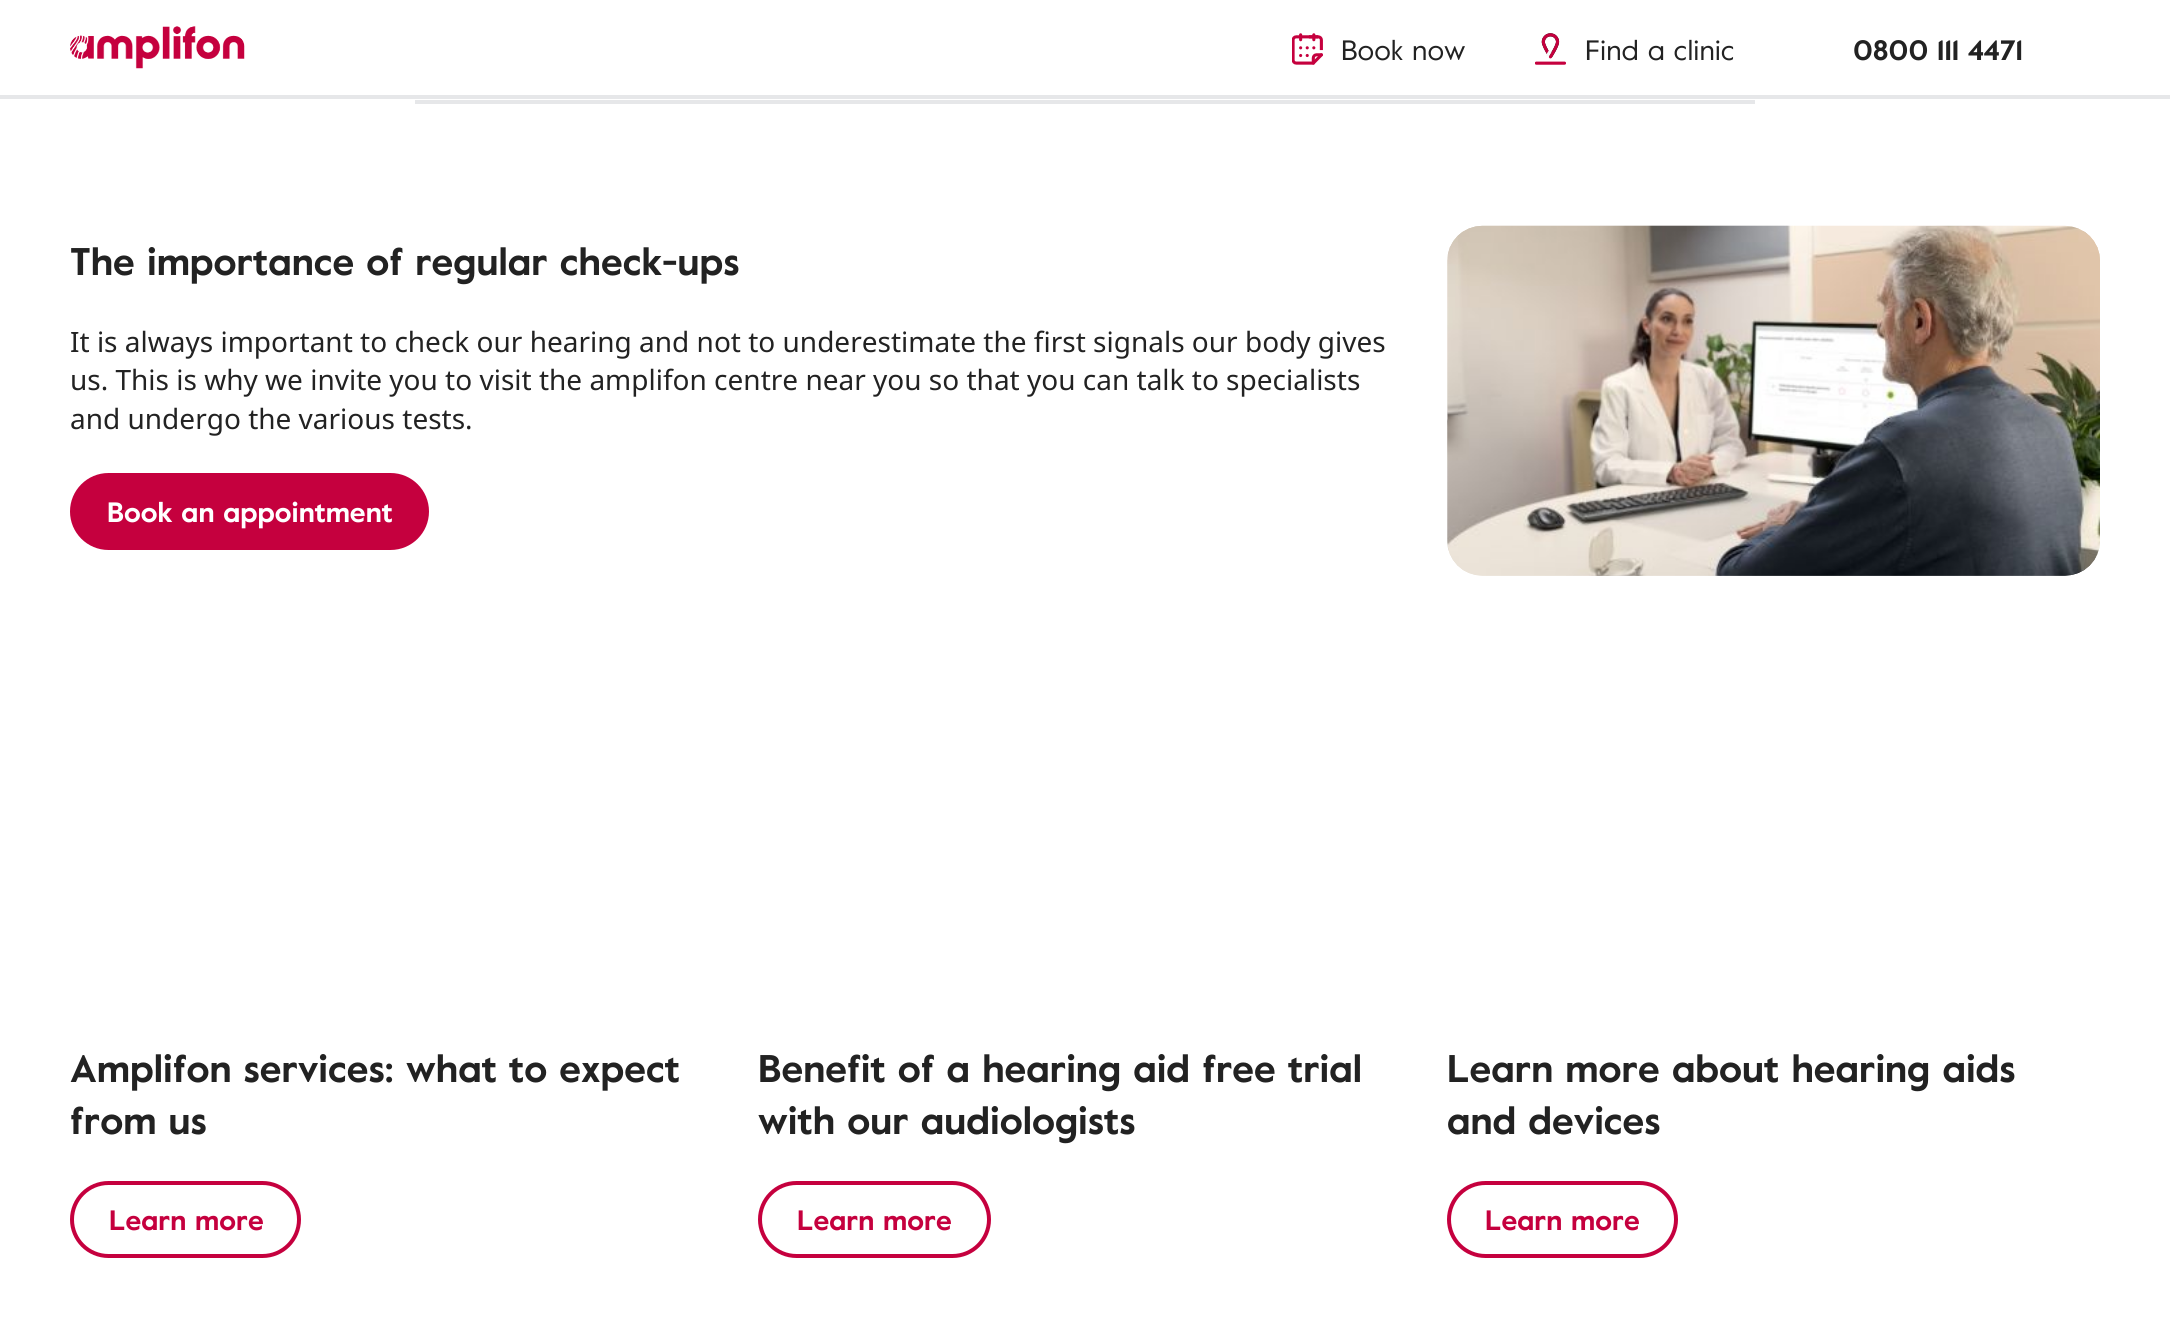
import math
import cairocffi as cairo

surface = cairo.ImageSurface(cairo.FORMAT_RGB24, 2170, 1317)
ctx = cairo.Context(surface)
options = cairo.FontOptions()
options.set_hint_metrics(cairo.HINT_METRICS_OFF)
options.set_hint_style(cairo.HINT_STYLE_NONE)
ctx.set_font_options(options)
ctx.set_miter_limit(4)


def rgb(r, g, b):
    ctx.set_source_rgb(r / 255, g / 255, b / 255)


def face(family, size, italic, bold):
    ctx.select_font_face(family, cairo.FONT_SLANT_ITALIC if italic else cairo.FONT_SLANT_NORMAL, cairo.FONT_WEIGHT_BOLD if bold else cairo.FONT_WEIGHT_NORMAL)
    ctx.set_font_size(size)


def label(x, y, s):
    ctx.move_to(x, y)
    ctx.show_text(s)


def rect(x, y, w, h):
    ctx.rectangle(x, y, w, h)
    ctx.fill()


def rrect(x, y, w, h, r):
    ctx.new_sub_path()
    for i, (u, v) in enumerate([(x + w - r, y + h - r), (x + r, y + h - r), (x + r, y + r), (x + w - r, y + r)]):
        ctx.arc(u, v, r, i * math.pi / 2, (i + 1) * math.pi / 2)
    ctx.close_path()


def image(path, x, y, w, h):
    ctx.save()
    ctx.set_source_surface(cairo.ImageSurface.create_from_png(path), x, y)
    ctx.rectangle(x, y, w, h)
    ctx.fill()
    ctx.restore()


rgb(255, 255, 255)
ctx.paint()
image('image0.png', 70, 26, 175, 43)
image('image1.png', 1292, 33, 31, 32)
face('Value', 28, 0, 0)
rgb(34, 34, 34)
label(1341, 60, 'Book now')
image('image2.png', 1535, 33, 31, 32)
label(1585, 60, 'Find a clinic')
face('Value', 28, 0, 1)
label(1853, 60, '0800 111 4471')
rgb(230, 231, 233)
rect(0, 95, 2170, 4)
rect(415, 100, 1340, 4)
face('Value', 38.5, 0, 1)
rgb(34, 34, 34)
label(70, 275, 'The importance of regular check-ups')
face('Noto Sans', 28, 0, 0)
label(70, 352, 'It is always important to check our hearing and not to underestimate the first signals our body gives')
label(70, 390, 'us. This is why we invite you to visit the amplifon centre near you so that you can talk to specialists')
label(70, 429, 'and undergo the various tests.')
rgb(197, 0, 62)
rrect(70, 473, 359, 77, 38.5)
ctx.fill()
face('Value', 28, 0, 1)
rgb(255, 255, 255)
label(107, 522, 'Book an appointment')
image('image3.png', 1447, 225, 653, 351)
image('image4.png', 1447, 225, 653, 351)
face('Value', 38.5, 0, 1)
rgb(34, 34, 34)
label(70, 1082, 'Amplifon services: what to expect')
label(70, 1134, 'from us')
rrect(72, 1183, 227, 73, 36.5)
rgb(197, 0, 62)
ctx.set_line_width(4)
ctx.stroke()
face('Value', 28, 0, 1)
label(109, 1230, 'Learn more')
face('Value', 38.5, 0, 1)
rgb(34, 34, 34)
label(758, 1082, 'Benefit of a hearing aid free trial')
label(758, 1134, 'with our audiologists')
rrect(760, 1183, 229, 73, 36.5)
rgb(197, 0, 62)
ctx.stroke()
face('Value', 28, 0, 1)
label(797, 1230, 'Learn more')
face('Value', 38.5, 0, 1)
rgb(34, 34, 34)
label(1447, 1082, 'Learn more about hearing aids')
label(1447, 1134, 'and devices')
rrect(1449, 1183, 227, 73, 36.5)
rgb(197, 0, 62)
ctx.stroke()
face('Value', 28, 0, 1)
label(1485, 1230, 'Learn more')
surface.write_to_png('render.png')
